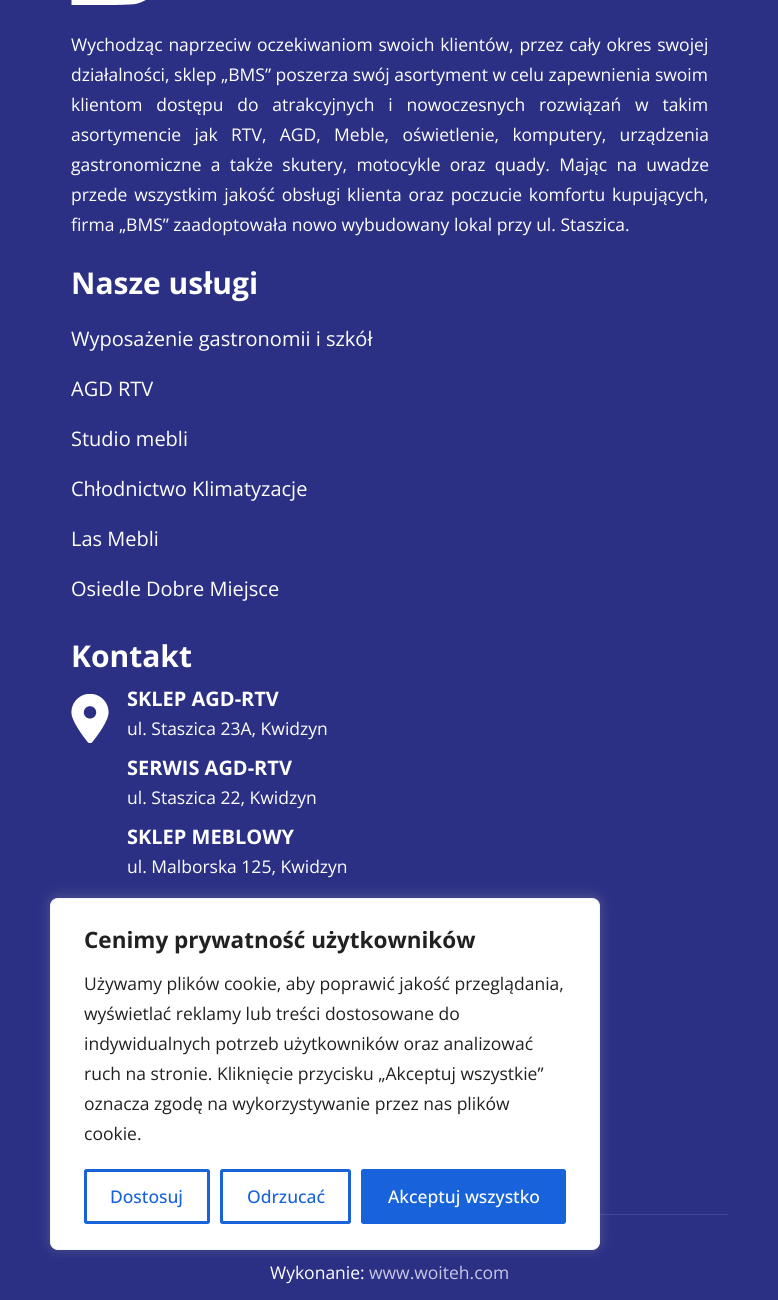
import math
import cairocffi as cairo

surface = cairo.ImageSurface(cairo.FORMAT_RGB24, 778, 1300)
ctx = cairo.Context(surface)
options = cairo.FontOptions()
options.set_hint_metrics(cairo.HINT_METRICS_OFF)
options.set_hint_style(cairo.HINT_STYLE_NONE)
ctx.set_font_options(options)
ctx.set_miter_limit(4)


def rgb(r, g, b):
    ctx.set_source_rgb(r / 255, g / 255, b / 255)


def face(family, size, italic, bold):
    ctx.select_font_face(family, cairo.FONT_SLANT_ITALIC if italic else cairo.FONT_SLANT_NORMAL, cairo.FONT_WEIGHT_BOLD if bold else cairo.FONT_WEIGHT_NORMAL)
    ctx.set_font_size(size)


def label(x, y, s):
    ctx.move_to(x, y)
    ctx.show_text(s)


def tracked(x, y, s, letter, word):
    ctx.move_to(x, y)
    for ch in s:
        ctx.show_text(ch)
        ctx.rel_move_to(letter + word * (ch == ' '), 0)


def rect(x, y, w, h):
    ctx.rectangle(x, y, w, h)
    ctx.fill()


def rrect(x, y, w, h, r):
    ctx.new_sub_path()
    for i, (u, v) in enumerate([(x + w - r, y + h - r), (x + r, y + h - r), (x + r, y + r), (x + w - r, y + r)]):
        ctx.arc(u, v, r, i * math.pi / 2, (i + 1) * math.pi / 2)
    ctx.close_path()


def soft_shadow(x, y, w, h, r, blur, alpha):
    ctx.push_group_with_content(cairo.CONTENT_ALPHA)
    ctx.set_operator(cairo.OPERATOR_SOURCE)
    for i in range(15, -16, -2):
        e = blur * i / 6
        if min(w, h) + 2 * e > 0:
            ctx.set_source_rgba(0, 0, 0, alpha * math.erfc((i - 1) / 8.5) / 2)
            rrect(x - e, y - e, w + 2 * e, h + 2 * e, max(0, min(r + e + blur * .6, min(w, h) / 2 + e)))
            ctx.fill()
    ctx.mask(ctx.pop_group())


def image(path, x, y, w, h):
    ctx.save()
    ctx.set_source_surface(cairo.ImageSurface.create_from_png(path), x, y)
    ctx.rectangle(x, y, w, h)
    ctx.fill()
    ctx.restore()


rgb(43, 48, 133)
ctx.paint()
image('image0.png', 71, 0, 75, 5)
face('Open Sans', 17.5, 0, 0)
rgb(255, 255, 255)
tracked(71, 51, 'Wychodząc naprzeciw oczekiwaniom swoich klientów, przez cały okres swojej', 0, 1.25)
label(71, 81, 'działalności, sklep „BMS” poszerza swój asortyment w celu zapewnienia swoim')
tracked(71, 111, 'klientom dostępu do atrakcyjnych i nowoczesnych rozwiązań w takim', 0, 9.25)
tracked(71, 141, 'asortymencie jak RTV, AGD, Meble, oświetlenie, komputery, urządzenia', 0, 8.75)
tracked(71, 171, 'gastronomiczne a także skutery, motocykle oraz quady. Mając na uwadze', 0, 4.75)
tracked(71, 201, 'przede wszystkim jakość obsługi klienta oraz poczucie komfortu kupujących,', 0, 2.25)
label(71, 231, 'firma „BMS” zaadoptowała nowo wybudowany lokal przy ul. Staszica.')
face('Open Sans', 30, 0, 1)
label(71, 294, 'Nasze usługi')
face('Open Sans', 20, 0, 0)
label(71, 346, 'Wyposażenie gastronomii i szkół')
label(71, 396, 'AGD RTV')
label(71, 446, 'Studio mebli')
label(71, 496, 'Chłodnictwo Klimatyzacje')
label(71, 546, 'Las Mebli')
label(71, 596, 'Osiedle Dobre Miejsce')
face('Open Sans', 30, 0, 1)
label(71, 667, 'Kontakt')
image('image1.png', 71, 694, 38, 49)
face('Open Sans', 20, 0, 1)
label(127, 706, 'SKLEP AGD-RTV')
face('Open Sans', 17.5, 0, 0)
label(127, 735, 'ul. Staszica 23A, Kwidzyn')
face('Open Sans', 20, 0, 1)
label(127, 775, 'SERWIS AGD-RTV')
face('Open Sans', 17.5, 0, 0)
label(127, 804, 'ul. Staszica 22, Kwidzyn')
face('Open Sans', 20, 0, 1)
label(127, 844, 'SKLEP MEBLOWY')
face('Open Sans', 17.5, 0, 0)
label(127, 873, 'ul. Malborska 125, Kwidzyn')
rgb(65, 70, 156)
rect(600, 1214, 128, 1)
rgb(255, 255, 255)
label(270, 1279, 'Wykonanie:')
rgb(198, 199, 228)
label(369, 1279, 'www.woiteh.com')
rgb(172, 171, 171)
soft_shadow(50, 896, 550, 353, 8, 6, 0.3)
rgb(255, 255, 255)
rrect(50.5, 898.5, 549, 351, 7.5)
ctx.fill_preserve()
rgb(244, 244, 244)
ctx.set_line_width(1)
ctx.stroke()
face('Open Sans', 22.5, 0, 1)
rgb(33, 33, 33)
label(84, 948, 'Cenimy prywatność użytkowników')
face('Open Sans', 17.5, 0, 0)
label(84, 990, 'Używamy plików cookie, aby poprawić jakość przeglądania,')
label(84, 1020, 'wyświetlać reklamy lub treści dostosowane do')
label(84, 1050, 'indywidualnych potrzeb użytkowników oraz analizować')
label(84, 1080, 'ruch na stronie. Kliknięcie przycisku „Akceptuj wszystkie”')
label(84, 1110, 'oznacza zgodę na wykorzystywanie przez nas plików')
label(84, 1140, 'cookie.')
rrect(85.5, 1170.5, 123, 52, 1)
rgb(24, 99, 220)
ctx.set_line_width(3)
ctx.stroke()
face('Open Sans Medium', 17.5, 0, 0)
label(110, 1203, 'Dostosuj')
rrect(221.5, 1170.5, 128, 52, 1)
ctx.stroke()
label(247, 1203, 'Odrzucać')
rrect(362.5, 1170.5, 202, 52, 1)
ctx.fill_preserve()
ctx.stroke()
rgb(255, 255, 255)
label(388, 1203, 'Akceptuj wszystko')
surface.write_to_png('render.png')
